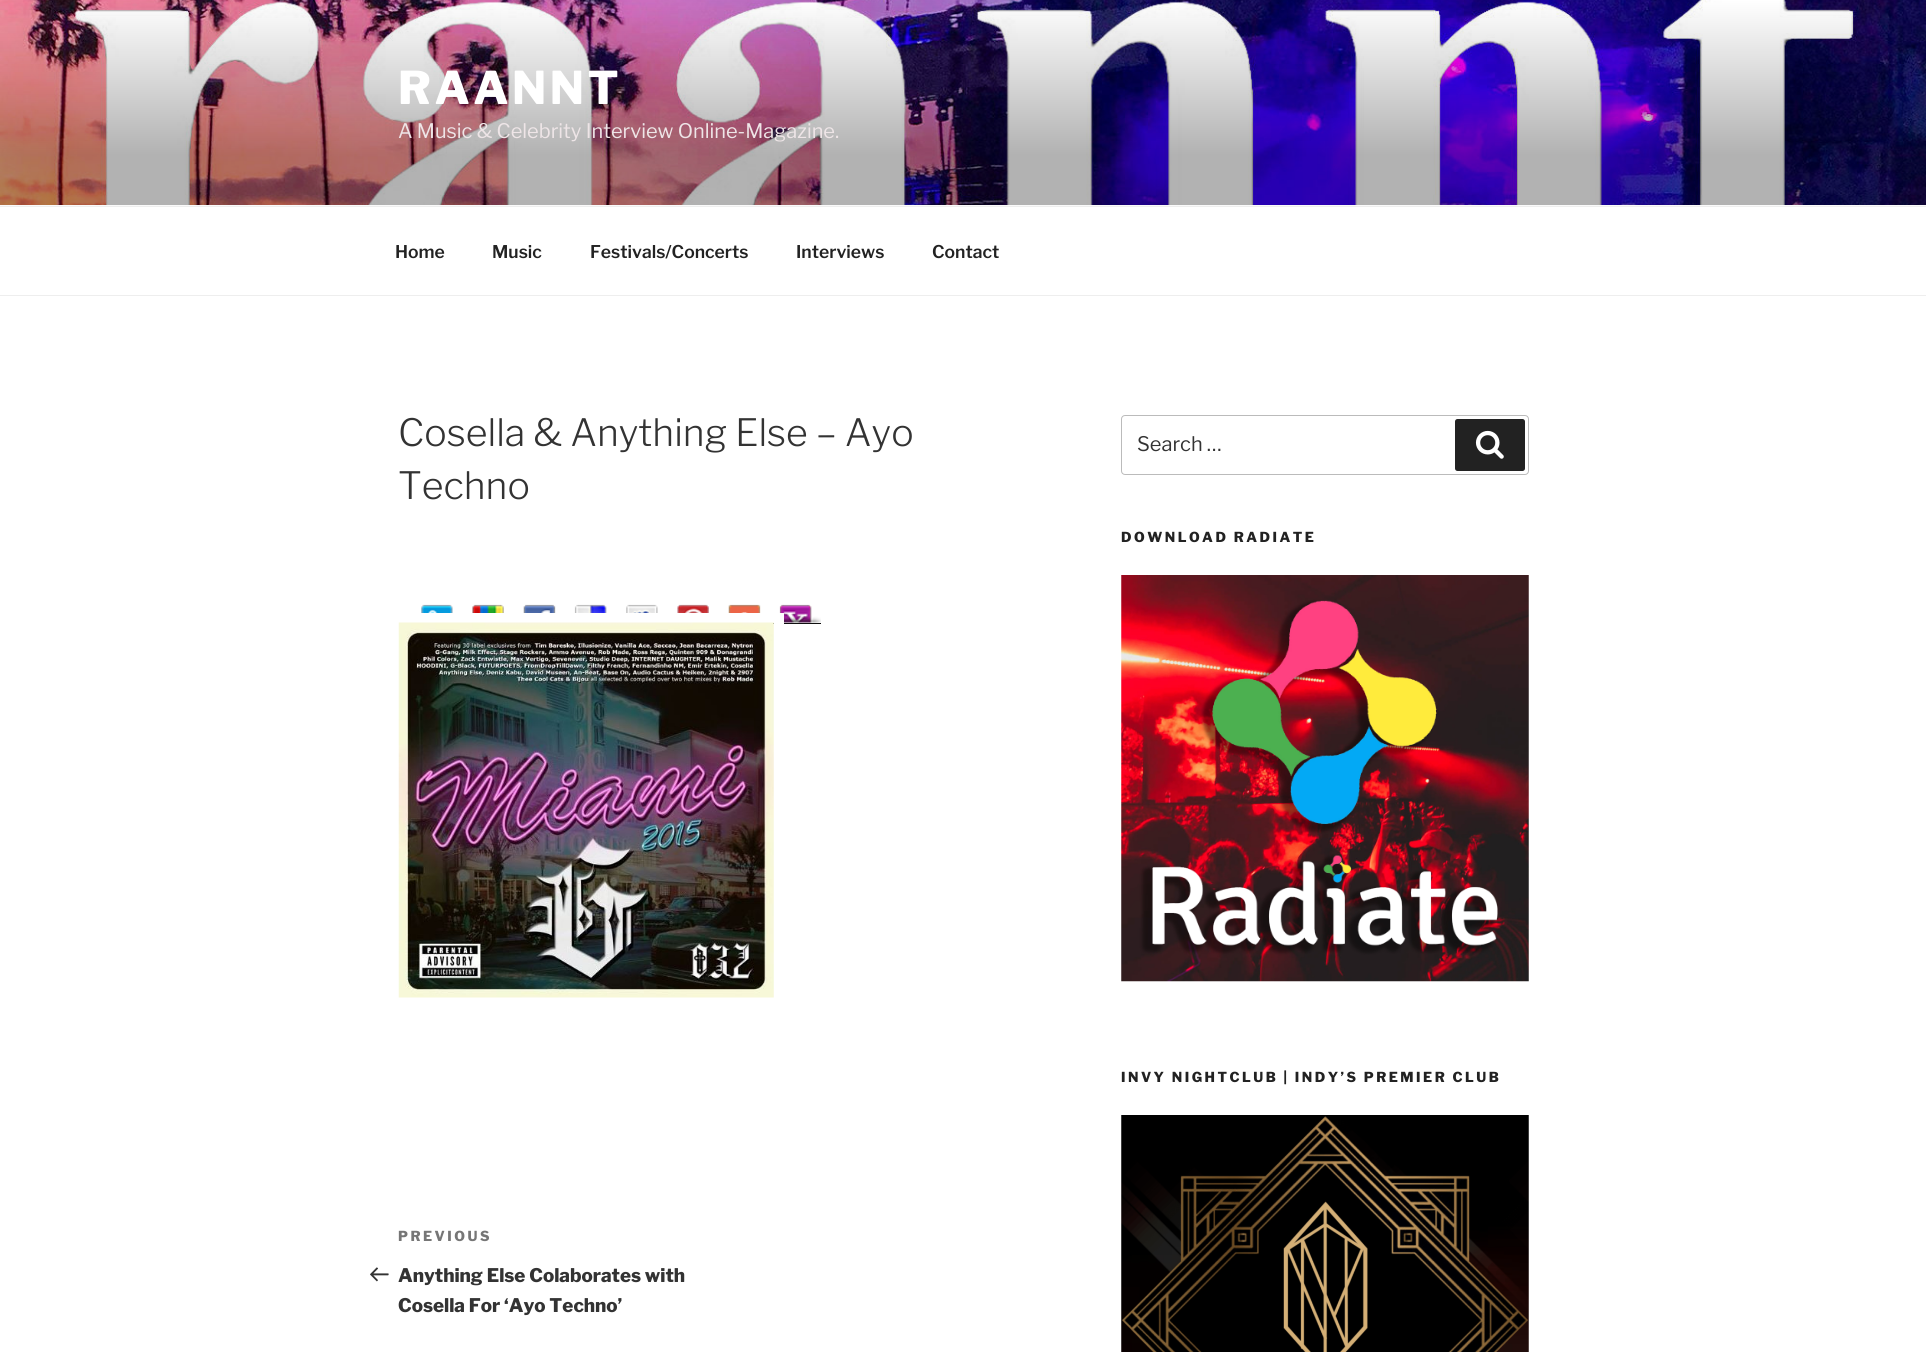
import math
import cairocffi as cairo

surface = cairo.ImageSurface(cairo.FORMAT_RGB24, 1926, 1352)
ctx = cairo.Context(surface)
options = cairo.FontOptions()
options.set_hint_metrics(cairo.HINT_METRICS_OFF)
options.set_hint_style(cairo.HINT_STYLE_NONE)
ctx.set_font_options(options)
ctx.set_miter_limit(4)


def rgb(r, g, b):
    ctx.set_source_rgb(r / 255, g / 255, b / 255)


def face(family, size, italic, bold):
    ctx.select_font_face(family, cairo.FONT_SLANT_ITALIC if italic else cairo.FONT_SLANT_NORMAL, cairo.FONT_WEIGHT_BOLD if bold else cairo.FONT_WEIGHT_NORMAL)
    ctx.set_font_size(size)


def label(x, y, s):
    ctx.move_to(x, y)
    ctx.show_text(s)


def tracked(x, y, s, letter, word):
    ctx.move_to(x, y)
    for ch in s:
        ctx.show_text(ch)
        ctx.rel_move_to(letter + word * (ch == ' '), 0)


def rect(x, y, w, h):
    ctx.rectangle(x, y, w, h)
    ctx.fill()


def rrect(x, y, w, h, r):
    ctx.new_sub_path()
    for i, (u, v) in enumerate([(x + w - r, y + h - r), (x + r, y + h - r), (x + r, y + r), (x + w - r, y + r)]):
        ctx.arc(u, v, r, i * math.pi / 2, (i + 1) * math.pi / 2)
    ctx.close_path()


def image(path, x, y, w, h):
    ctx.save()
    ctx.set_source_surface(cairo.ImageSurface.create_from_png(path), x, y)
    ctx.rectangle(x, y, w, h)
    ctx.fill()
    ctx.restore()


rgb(255, 255, 255)
ctx.paint()
rgb(250, 250, 250)
rect(0, 205, 1926, 1)
image('image0.png', 0, 0, 1926, 205)
face('Libre Franklin ExtraBold', 45, 0, 0)
rgb(255, 255, 255)
tracked(398, 104, 'RAANNT', 3.5, 0)
face('Libre Franklin', 20, 0, 0)
rgb(238, 229, 231)
label(398, 138, 'A Music & Celebrity Interview Online-Magazine.')
rgb(238, 238, 238)
rect(0, 206, 1926, 1)
rect(0, 295, 1926, 1)
face('Libre Franklin SemiBold', 17.5, 0, 0)
rgb(34, 34, 34)
label(395, 258, 'Home')
label(492, 258, 'Music')
label(590, 258, 'Festivals/Concerts')
label(796, 258, 'Interviews')
label(932, 258, 'Contact')
face('Libre Franklin Light', 37.5, 0, 0)
rgb(51, 51, 51)
label(398, 446, 'Cosella & Anything Else – Ayo')
label(398, 499, 'Techno')
image('image1.png', 421, 604, 32, 9)
image('image2.png', 472, 604, 32, 9)
image('image3.png', 523, 604, 33, 9)
image('image4.png', 574, 604, 33, 9)
image('image5.png', 626, 604, 32, 9)
image('image6.png', 677, 604, 32, 9)
image('image7.png', 728, 604, 33, 9)
image('image8.png', 779, 604, 42, 19)
rgb(15, 15, 15)
rect(770, 623, 51, 1)
ctx.rectangle(394, 618, 385, 385)
rgb(255, 255, 255)
ctx.set_line_width(10)
ctx.stroke()
image('image9.png', 398, 622, 376, 376)
face('Libre Franklin ExtraBold', 13.75, 0, 0)
rgb(118, 118, 118)
tracked(398, 1241, 'PREVIOUS', 2.5, 0)
image('image10.png', 370, 1267, 19, 15)
face('Libre Franklin ExtraBold', 18.75, 0, 0)
rgb(51, 51, 51)
label(398, 1282, 'Anything Else Colaborates with')
label(398, 1312, 'Cosella For ‘Ayo Techno’')
rrect(1121.5, 415.5, 407, 59, 3.5)
rgb(187, 187, 187)
ctx.set_line_width(1)
ctx.stroke()
face('Libre Franklin', 20, 0, 0)
rgb(51, 51, 51)
label(1137, 451, 'Search …')
rgb(34, 34, 34)
rrect(1455, 419, 70, 52, 2.5)
ctx.fill()
image('image11.png', 1475, 430, 29, 29)
face('Libre Franklin ExtraBold', 13.75, 0, 0)
tracked(1121, 542, 'DOWNLOAD RADIATE', 2.5, 0)
image('image12.png', 1121, 575, 408, 407)
tracked(1121, 1082, 'INVY NIGHTCLUB | INDY’S PREMIER CLUB', 2.5, 0)
image('image13.png', 1121, 1115, 408, 237)
surface.write_to_png('render.png')
